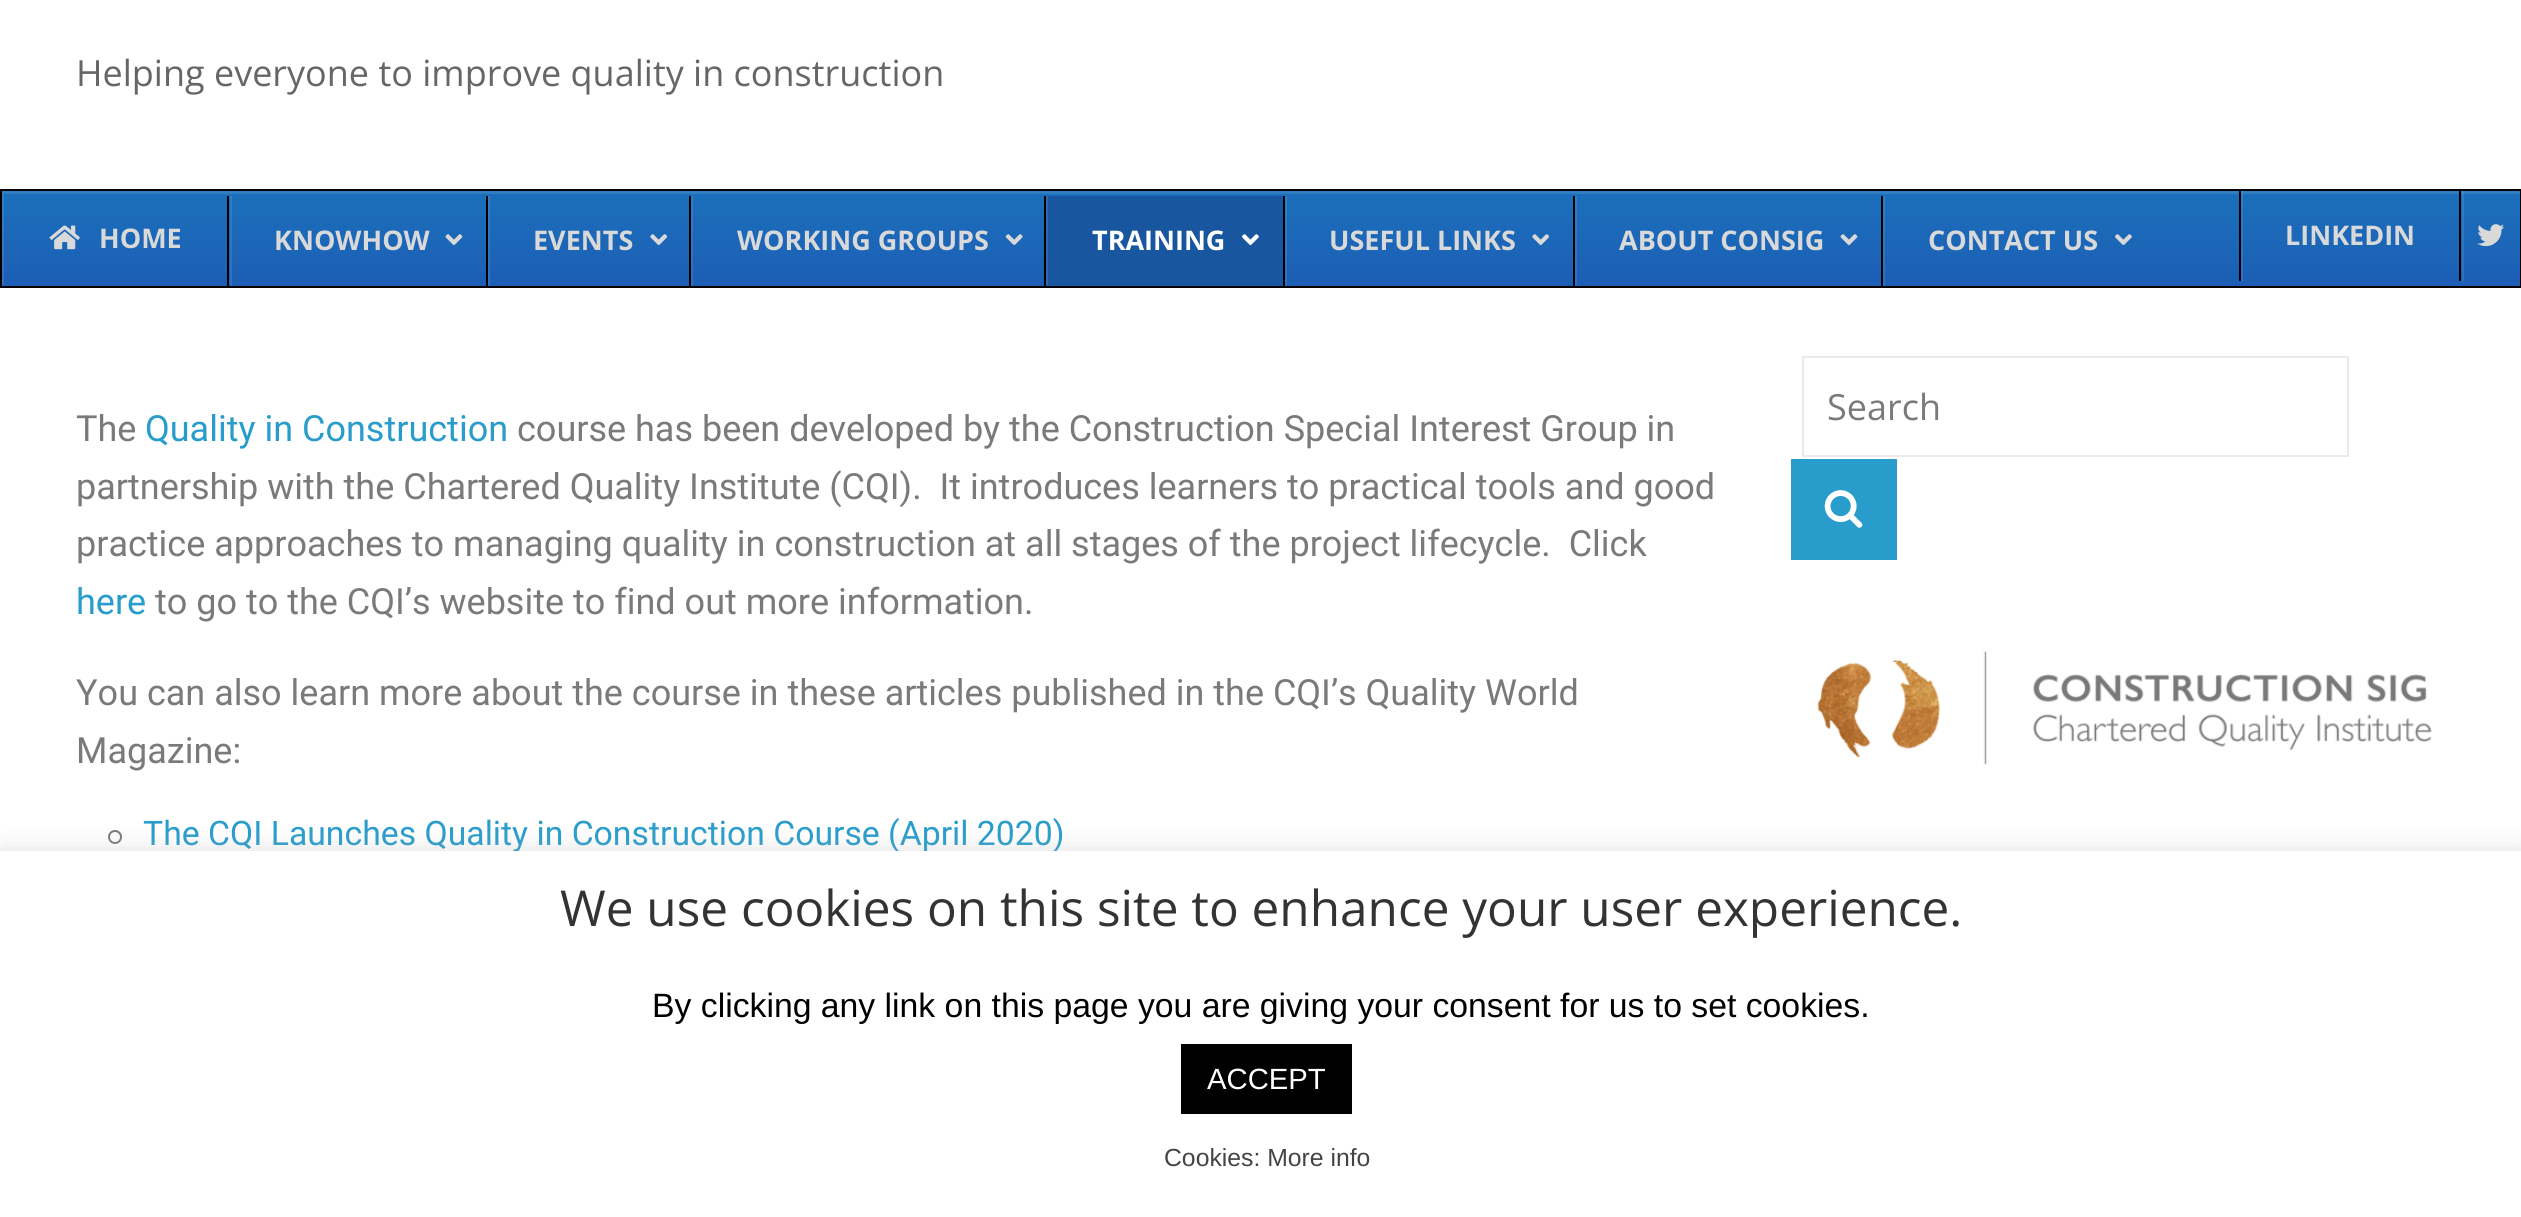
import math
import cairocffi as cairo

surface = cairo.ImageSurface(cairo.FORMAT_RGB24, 2521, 1217)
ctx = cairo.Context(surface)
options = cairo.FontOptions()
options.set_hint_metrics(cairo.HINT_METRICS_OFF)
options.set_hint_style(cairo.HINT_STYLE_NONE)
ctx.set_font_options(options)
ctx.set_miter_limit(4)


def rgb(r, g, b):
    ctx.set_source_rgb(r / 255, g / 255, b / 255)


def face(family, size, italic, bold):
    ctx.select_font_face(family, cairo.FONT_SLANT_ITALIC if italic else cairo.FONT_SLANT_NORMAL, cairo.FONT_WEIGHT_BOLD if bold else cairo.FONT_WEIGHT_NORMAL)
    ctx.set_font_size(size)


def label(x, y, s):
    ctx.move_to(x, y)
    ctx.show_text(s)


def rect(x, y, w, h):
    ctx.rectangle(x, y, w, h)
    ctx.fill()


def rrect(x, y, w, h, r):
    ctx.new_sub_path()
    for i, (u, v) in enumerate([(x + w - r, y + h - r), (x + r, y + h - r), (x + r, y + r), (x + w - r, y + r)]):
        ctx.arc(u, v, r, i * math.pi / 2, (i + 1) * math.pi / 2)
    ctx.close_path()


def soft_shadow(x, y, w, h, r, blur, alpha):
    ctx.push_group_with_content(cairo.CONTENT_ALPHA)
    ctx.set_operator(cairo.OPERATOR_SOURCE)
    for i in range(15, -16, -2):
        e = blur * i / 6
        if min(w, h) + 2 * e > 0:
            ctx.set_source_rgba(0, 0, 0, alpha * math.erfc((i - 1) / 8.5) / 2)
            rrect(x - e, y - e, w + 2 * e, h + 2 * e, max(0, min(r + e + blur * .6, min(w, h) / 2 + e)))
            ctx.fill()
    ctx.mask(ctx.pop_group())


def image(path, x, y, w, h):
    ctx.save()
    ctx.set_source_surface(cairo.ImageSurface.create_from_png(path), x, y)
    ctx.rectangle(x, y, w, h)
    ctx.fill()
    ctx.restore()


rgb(255, 255, 255)
ctx.paint()
face('Open Sans', 36, 0, 0)
rgb(102, 102, 102)
label(76, 86, 'Helping everyone to improve quality in construction')
gradient = cairo.LinearGradient(1261, 191, 1261, 286)
gradient.add_color_stop_rgba(0, 0.106, 0.439, 0.729, 1)
gradient.add_color_stop_rgba(1, 0.11, 0.369, 0.71, 1)
ctx.set_source(gradient)
rect(2, 191, 2518, 95)
gradient = cairo.LinearGradient(1261, 191, 1261, 286)
gradient.add_color_stop_rgba(0, 0.196, 0.494, 0.757, 1)
gradient.add_color_stop_rgba(1, 0.2, 0.431, 0.737, 1)
ctx.set_source(gradient)
rect(1883, 196, 2, 90)
rect(1575, 196, 2, 90)
rect(1285, 196, 2, 90)
rect(691, 196, 2, 90)
rect(488, 196, 2, 90)
rect(230, 196, 2, 90)
ctx.save()
ctx.rectangle(2, 191, 2518, 95)
ctx.clip()
ctx.set_source_rgba(1, 1, 1, 0.1)
ctx.set_fill_rule(cairo.FILL_RULE_EVEN_ODD)
ctx.new_path()
ctx.move_to(-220, -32)
ctx.line_to(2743, -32)
ctx.line_to(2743, 508)
ctx.line_to(-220, 508)
ctx.close_path()
ctx.move_to(4, 194)
ctx.line_to(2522, 194)
ctx.line_to(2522, 288)
ctx.line_to(4, 288)
ctx.close_path()
ctx.fill()
ctx.restore()
ctx.rectangle(1, 190, 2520, 97)
rgb(0, 0, 0)
ctx.stroke()
image('image0.png', 49, 225, 31, 25)
face('Open Sans', 27, 0, 1)
rgb(217, 217, 217)
label(99, 248, 'HOME')
rgb(0, 0, 0)
rect(227, 196, 2, 90)
rgb(217, 217, 217)
label(274, 250, 'KNOWHOW')
image('image1.png', 445, 234, 18, 11)
rgb(0, 0, 0)
rect(486, 196, 2, 90)
rgb(217, 217, 217)
label(533, 250, 'EVENTS')
image('image2.png', 650, 234, 18, 11)
rgb(0, 0, 0)
rect(689, 196, 2, 90)
rgb(217, 217, 217)
label(737, 250, 'WORKING GROUPS')
image('image3.png', 1005, 234, 18, 11)
rgb(24, 87, 160)
rect(1048, 196, 235, 90)
rgb(47, 104, 170)
rect(1046, 196, 2, 90)
rgb(0, 0, 0)
rect(1044, 196, 2, 90)
rgb(255, 255, 255)
label(1092, 250, 'TRAINING')
image('image4.png', 1242, 234, 17, 11)
rgb(0, 0, 0)
rect(1283, 196, 2, 90)
rgb(217, 217, 217)
label(1329, 250, 'USEFUL LINKS')
image('image2.png', 1532, 234, 18, 11)
rgb(0, 0, 0)
rect(1573, 196, 2, 90)
rgb(217, 217, 217)
label(1619, 250, 'ABOUT CONSIG')
image('image1.png', 1840, 234, 18, 11)
rgb(0, 0, 0)
rect(1881, 196, 2, 90)
rgb(217, 217, 217)
label(1928, 250, 'CONTACT US')
image('image5.png', 2115, 234, 17, 11)
ctx.set_source_rgba(1, 1, 1, 0.1)
rect(2241, 191, 2, 90)
rgb(0, 0, 0)
rect(2239, 191, 2, 90)
rgb(217, 217, 217)
label(2285, 245, 'LINKEDIN')
ctx.set_source_rgba(1, 1, 1, 0.1)
rect(2462, 191, 2, 90)
rgb(0, 0, 0)
rect(2459, 191, 2, 90)
image('image6.png', 2477, 224, 28, 23)
ctx.rectangle(1803, 357, 545, 99)
rgb(234, 234, 234)
ctx.stroke()
face('Open Sans', 36, 0, 0)
rgb(122, 122, 122)
label(1827, 420, 'Search')
rgb(40, 157, 204)
rect(1791, 459, 106, 101)
image('image7.png', 1824, 490, 39, 38)
image('image8.png', 1817, 651, 615, 114)
face('Roboto', 36, 0, 0)
rgb(122, 122, 122)
label(76, 441, 'The')
rgb(40, 157, 204)
label(145, 441, 'Quality in Construction')
rgb(122, 122, 122)
label(517, 441, 'course has been developed by the Construction Special Interest Group in')
label(76, 499, 'partnership with the Chartered Quality Institute (CQI).  It introduces learners to practical tools and good')
label(76, 556, 'practice approaches to managing quality in construction at all stages of the project lifecycle.  Click')
rgb(40, 157, 204)
label(76, 614, 'here')
rgb(122, 122, 122)
label(155, 614, 'to go to the CQI’s website to find out more information.')
label(76, 705, 'You can also learn more about the course in these articles published in the CQI’s Quality World')
label(76, 763, 'Magazine:')
ctx.new_path()
ctx.arc(115, 837, 6, 0, 2 * math.pi)
ctx.stroke()
face('Roboto', 33.75, 0, 0)
rgb(40, 157, 204)
label(143, 845, 'The CQI Launches Quality in Construction Course (April 2020)')
rgb(172, 171, 171)
soft_shadow(0, 848, 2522, 367, 0, 11, 0.3)
rgb(255, 255, 255)
rect(0, 851, 2521, 366)
face('Open Sans', 49.5, 0, 0)
rgb(51, 51, 51)
label(560, 926, 'We use cookies on this site to enhance your user experience.')
face('Liberation Sans', 33.75, 0, 0)
rgb(0, 0, 0)
label(652, 1017, 'By clicking any link on this page you are giving your consent for us to set cookies.')
rect(1181, 1044, 171, 70)
face('Liberation Sans', 29.25, 0, 0)
rgb(255, 255, 255)
label(1207, 1089, 'ACCEPT')
face('Liberation Sans', 24.75, 0, 0)
rgb(68, 68, 68)
label(1164, 1166, 'Cookies: More info')
surface.write_to_png('render.png')
